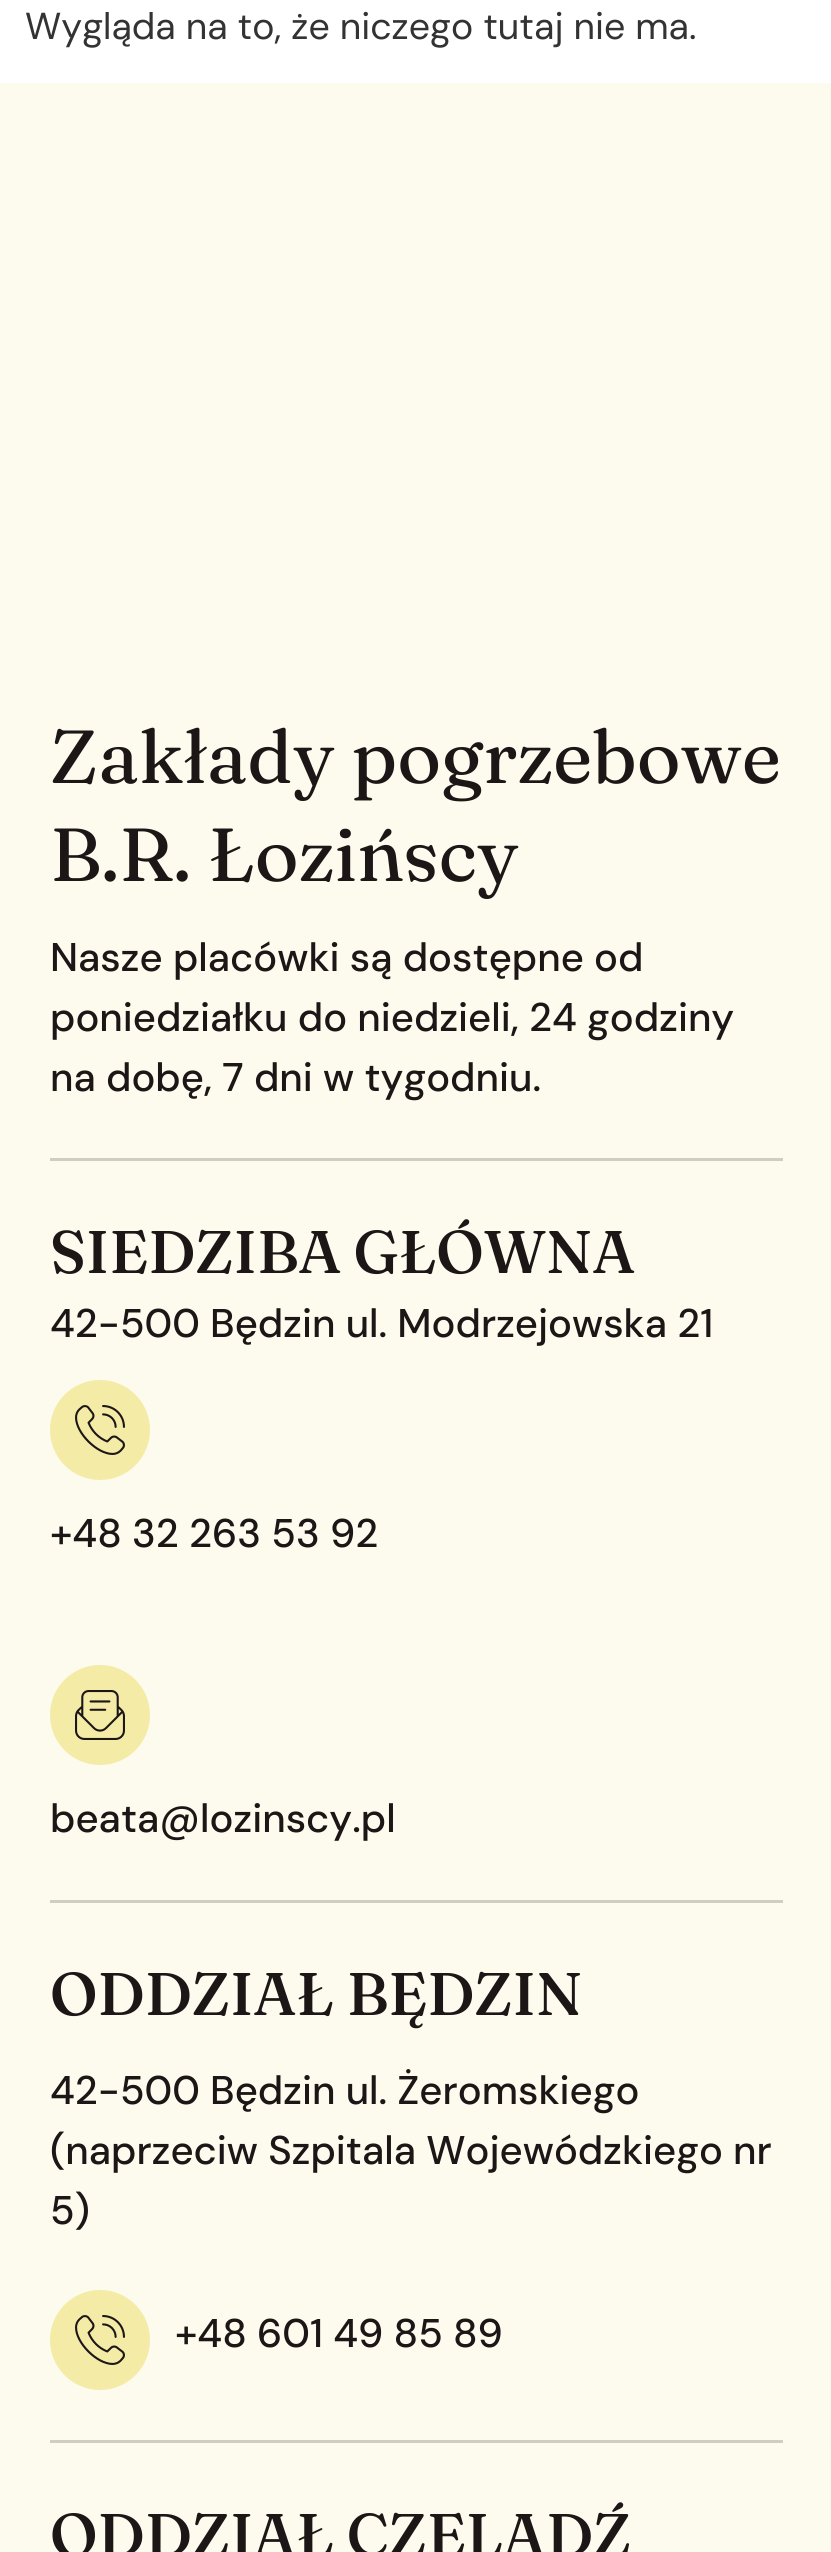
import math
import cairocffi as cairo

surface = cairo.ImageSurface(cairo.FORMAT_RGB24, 831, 2552)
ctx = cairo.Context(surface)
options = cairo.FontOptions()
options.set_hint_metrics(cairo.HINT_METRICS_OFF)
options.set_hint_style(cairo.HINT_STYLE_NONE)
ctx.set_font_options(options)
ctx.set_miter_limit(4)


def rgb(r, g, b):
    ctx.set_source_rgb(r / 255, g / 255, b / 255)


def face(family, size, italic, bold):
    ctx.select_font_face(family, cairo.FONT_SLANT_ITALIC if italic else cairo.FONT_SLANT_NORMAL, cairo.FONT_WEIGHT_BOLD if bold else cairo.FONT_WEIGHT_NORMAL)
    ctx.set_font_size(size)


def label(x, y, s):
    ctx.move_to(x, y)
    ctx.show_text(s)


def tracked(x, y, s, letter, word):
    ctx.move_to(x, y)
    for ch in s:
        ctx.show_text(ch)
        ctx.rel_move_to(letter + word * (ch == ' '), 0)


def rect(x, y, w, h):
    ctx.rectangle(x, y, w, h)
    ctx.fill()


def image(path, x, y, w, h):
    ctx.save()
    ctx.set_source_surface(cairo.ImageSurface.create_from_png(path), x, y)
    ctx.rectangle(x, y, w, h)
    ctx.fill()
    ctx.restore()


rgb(255, 255, 255)
ctx.paint()
face('DM Sans', 37.5, 0, 0)
rgb(51, 51, 51)
label(25, 39, 'Wygląda na to, że niczego tutaj nie ma.')
rgb(253, 251, 237)
rect(0, 83, 831, 2469)
face('Fraunces', 75, 0, 0)
rgb(28, 22, 23)
label(50, 783, 'Zakłady pogrzebowe')
label(50, 881, 'B.R. Łozińscy')
face('DM Sans Medium', 40, 0, 0)
label(50, 971, 'Nasze placówki są dostępne od')
label(50, 1031, 'poniedziałku do niedzieli, 24 godziny')
label(50, 1091, 'na dobę, 7 dni w tygodniu.')
rgb(208, 205, 194)
rect(50, 1158, 733, 3)
face('Fraunces Medium', 60, 0, 0)
rgb(28, 22, 23)
tracked(50, 1273, 'SIEDZIBA GŁÓWNA', 0, -1)
face('DM Sans Medium', 40, 0, 0)
label(50, 1337, '42-500 Będzin ul. Modrzejowska 21')
rgb(244, 235, 166)
ctx.new_path()
ctx.arc(100, 1430, 50, 0, 2 * math.pi)
ctx.fill()
image('image0.png', 75, 1405, 50, 50)
rgb(28, 22, 23)
label(50, 1547, '+48 32 263 53 92')
rgb(244, 235, 166)
ctx.new_path()
ctx.arc(100, 1715, 50, 0, 2 * math.pi)
ctx.fill()
image('image1.png', 75, 1690, 50, 50)
rgb(28, 22, 23)
label(50, 1832, 'beata@lozinscy.pl')
rgb(208, 205, 194)
rect(50, 1900, 733, 3)
rect(50, 2440, 733, 3)
face('Fraunces Medium', 60, 0, 0)
rgb(28, 22, 23)
label(50, 2015, 'ODDZIAŁ BĘDZIN')
face('DM Sans Medium', 40, 0, 0)
label(50, 2104, '42-500 Będzin ul. Żeromskiego')
label(50, 2164, '(naprzeciw Szpitala Wojewódzkiego nr')
label(50, 2224, '5)')
rgb(244, 235, 166)
ctx.new_path()
ctx.arc(100, 2340, 50, 0, 2 * math.pi)
ctx.fill()
image('image0.png', 75, 2315, 50, 50)
rgb(28, 22, 23)
label(175, 2347, '+48 601 49 85 89')
face('Fraunces Medium', 60, 0, 0)
label(50, 2556, 'ODDZIAŁ CZELADŹ')
surface.write_to_png('render.png')
